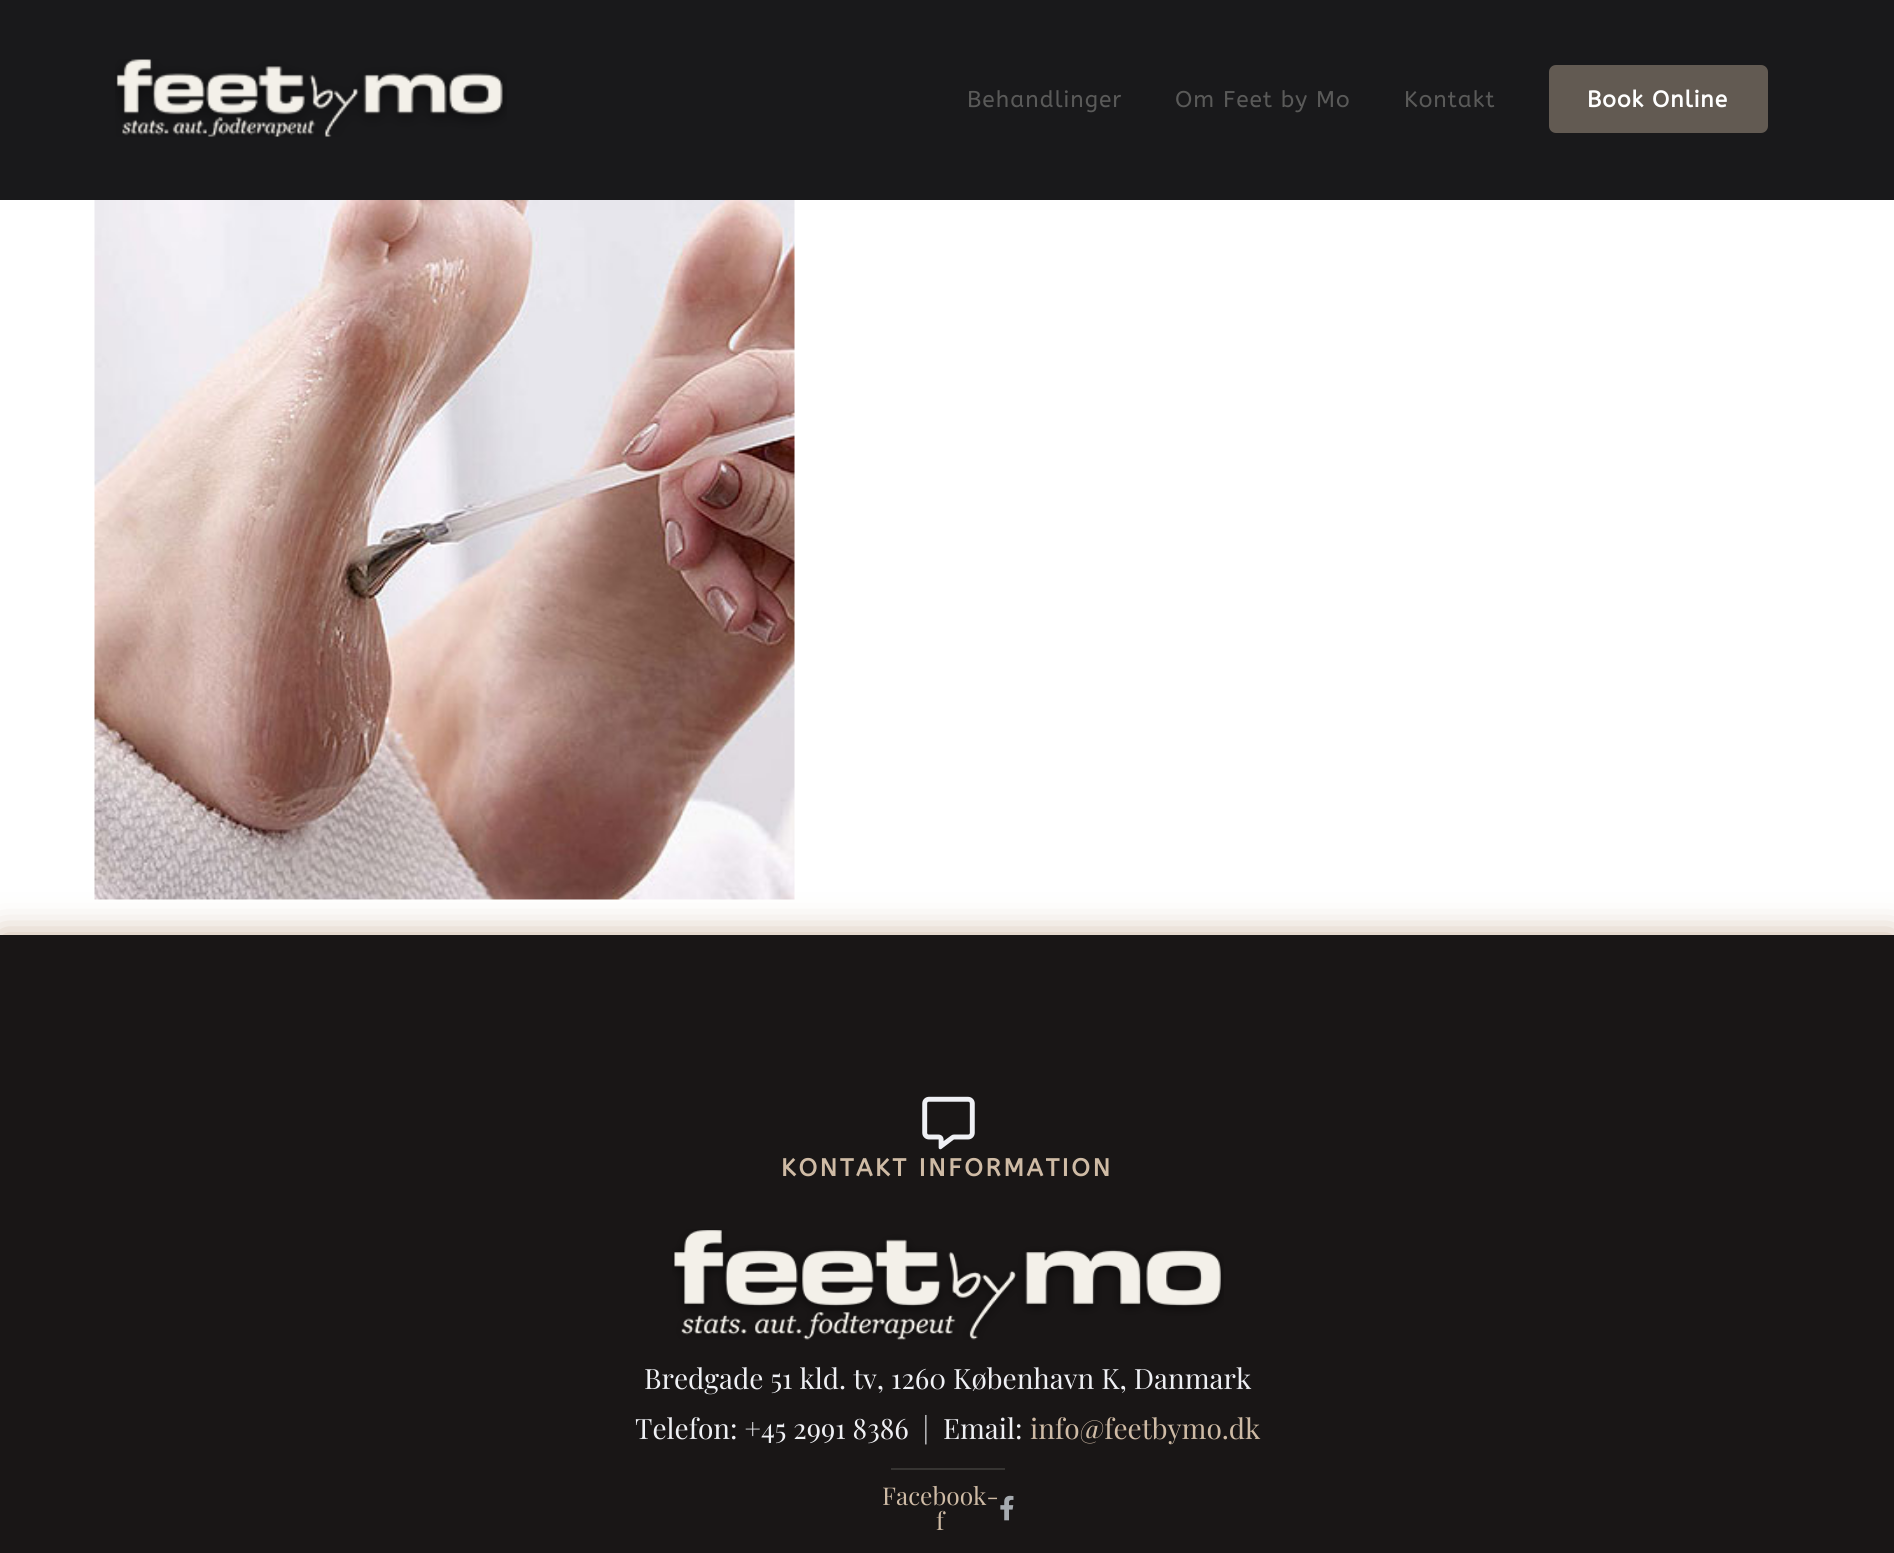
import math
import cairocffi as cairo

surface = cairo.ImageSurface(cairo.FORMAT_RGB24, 1894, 1553)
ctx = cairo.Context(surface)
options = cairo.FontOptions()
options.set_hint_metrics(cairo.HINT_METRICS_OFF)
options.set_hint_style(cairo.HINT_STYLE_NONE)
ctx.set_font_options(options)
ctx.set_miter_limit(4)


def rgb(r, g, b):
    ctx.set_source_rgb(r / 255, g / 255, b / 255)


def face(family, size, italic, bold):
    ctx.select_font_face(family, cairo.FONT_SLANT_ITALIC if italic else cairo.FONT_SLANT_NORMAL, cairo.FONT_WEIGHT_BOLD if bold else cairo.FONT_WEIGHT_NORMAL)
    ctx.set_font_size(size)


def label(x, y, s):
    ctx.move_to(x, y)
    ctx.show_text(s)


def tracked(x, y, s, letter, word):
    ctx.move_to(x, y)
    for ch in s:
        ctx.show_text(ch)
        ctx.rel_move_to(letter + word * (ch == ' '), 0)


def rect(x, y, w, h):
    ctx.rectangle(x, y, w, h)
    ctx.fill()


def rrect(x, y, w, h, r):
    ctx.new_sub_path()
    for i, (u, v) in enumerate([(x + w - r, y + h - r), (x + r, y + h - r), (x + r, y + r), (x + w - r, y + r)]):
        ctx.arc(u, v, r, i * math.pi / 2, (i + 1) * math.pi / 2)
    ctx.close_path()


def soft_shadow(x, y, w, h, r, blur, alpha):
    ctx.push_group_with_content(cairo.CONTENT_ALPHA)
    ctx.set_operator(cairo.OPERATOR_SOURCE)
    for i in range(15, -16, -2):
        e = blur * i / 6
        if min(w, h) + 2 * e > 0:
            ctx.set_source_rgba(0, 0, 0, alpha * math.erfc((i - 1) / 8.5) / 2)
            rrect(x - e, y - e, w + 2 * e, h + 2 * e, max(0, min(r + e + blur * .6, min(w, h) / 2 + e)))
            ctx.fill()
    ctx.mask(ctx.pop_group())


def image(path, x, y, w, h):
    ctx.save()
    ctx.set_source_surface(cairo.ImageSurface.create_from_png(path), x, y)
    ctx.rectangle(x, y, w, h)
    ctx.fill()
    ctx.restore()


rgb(255, 255, 255)
ctx.paint()
rgb(25, 25, 27)
rect(0, 0, 1894, 200)
image('image0.png', 115, 59, 392, 78)
face('ABeeZee', 22.75, 0, 0)
rgb(90, 90, 89)
tracked(967, 107, 'Behandlinger', 1, 0)
tracked(1175, 107, 'Om Feet by Mo', 1, 0)
tracked(1404, 107, 'Kontakt', 1, 0)
rgb(98, 90, 82)
rrect(1549, 65, 219, 68, 7)
ctx.fill()
face('ABeeZee', 22.75, 0, 1)
rgb(255, 255, 255)
tracked(1587, 107, 'Book Online', 1, 0)
rgb(191, 160, 132)
soft_shadow(0, 935, 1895, 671, 0, 17.5, 0.8)
image('image1.png', 94, 200, 701, 700)
rgb(25, 22, 22)
rect(0, 935, 1894, 618)
image('image2.png', 922, 1096, 53, 54)
face('ABeeZee', 24.5, 0, 1)
rgb(207, 187, 165)
tracked(781, 1176, 'KONTAKT INFORMATION', 2.75, 0)
image('image3.png', 672, 1229, 552, 111)
face('Playfair Display', 28, 0, 0)
rgb(239, 240, 244)
label(644, 1389, 'Bredgade 51 kld. tv, 1260 København K, Danmark')
label(635, 1439, 'Telefon: +45 2991 8386  |  Email:')
rgb(207, 187, 165)
label(1030, 1439, 'info@feetbymo.dk')
rgb(54, 52, 50)
rect(891, 1468, 114, 2)
face('Playfair Display', 24.5, 0, 0)
rgb(207, 187, 165)
label(882, 1505, 'Facebook-')
label(936, 1530, 'f')
image('image4.png', 1000, 1495, 14, 26)
surface.write_to_png('render.png')
